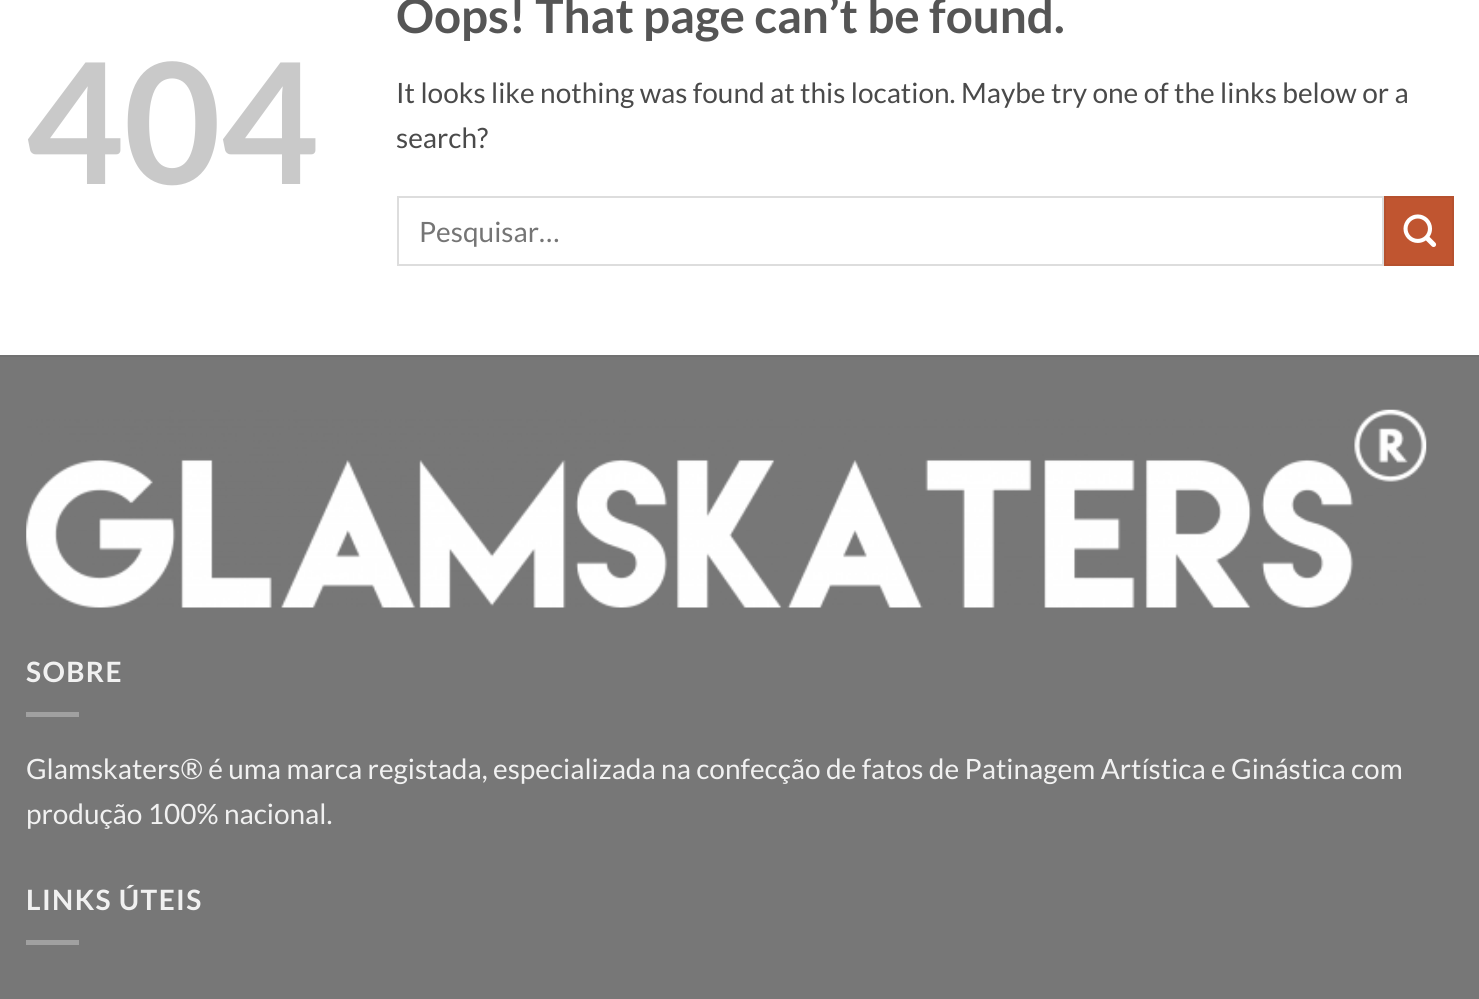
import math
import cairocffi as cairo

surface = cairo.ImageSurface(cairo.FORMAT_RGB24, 1479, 999)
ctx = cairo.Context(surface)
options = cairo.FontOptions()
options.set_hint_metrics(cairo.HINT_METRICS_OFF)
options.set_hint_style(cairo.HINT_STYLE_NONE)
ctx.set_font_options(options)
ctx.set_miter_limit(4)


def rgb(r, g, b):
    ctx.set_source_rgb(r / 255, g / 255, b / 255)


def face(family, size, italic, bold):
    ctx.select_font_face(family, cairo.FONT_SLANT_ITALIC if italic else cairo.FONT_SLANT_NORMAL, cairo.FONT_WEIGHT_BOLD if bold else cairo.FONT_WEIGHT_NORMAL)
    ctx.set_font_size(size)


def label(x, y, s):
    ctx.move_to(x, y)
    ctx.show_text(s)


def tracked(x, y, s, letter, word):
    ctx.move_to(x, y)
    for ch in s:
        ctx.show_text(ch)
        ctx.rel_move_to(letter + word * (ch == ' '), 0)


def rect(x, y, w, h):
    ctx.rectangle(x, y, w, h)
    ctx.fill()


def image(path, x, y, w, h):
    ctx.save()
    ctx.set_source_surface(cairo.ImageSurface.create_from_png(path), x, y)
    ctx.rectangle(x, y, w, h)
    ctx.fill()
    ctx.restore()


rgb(255, 255, 255)
ctx.paint()
face('Lato', 168, 0, 1)
rgb(201, 201, 201)
label(26, 184, '404')
face('Lato', 47.6, 0, 1)
rgb(85, 85, 85)
label(396, 33, 'Oops! That page can’t be found.')
face('Lato', 28, 0, 0)
rgb(74, 74, 74)
label(396, 103, 'It looks like nothing was found at this location. Maybe try one of the links below or a')
label(396, 148, 'search?')
ctx.rectangle(398, 197, 985, 68)
rgb(221, 221, 221)
ctx.stroke()
rgb(117, 117, 117)
label(419, 242, 'Pesquisar…')
rgb(192, 85, 48)
ctx.rectangle(1385, 197, 68, 68)
ctx.fill_preserve()
rgb(182, 81, 46)
ctx.stroke()
image('image0.png', 1403, 214, 34, 33)
rgb(119, 119, 119)
rect(0, 357, 1479, 642)
rgb(113, 113, 113)
rect(0, 355, 1479, 2)
image('image1.png', 26, 409, 1401, 199)
face('Lato', 28, 0, 1)
rgb(241, 241, 241)
tracked(26, 682, 'SOBRE', 1.4, 0)
rgb(160, 160, 160)
rect(26, 712, 53, 5)
face('Lato', 28, 0, 0)
rgb(241, 241, 241)
label(26, 779, 'Glamskaters® é uma marca registada, especializada na confecção de fatos de Patinagem Artística e Ginástica com')
label(26, 824, 'produção 100% nacional.')
face('Lato', 28, 0, 1)
tracked(26, 910, 'LINKS ÚTEIS', 1.4, 0)
rgb(160, 160, 160)
rect(26, 940, 53, 5)
surface.write_to_png('render.png')
